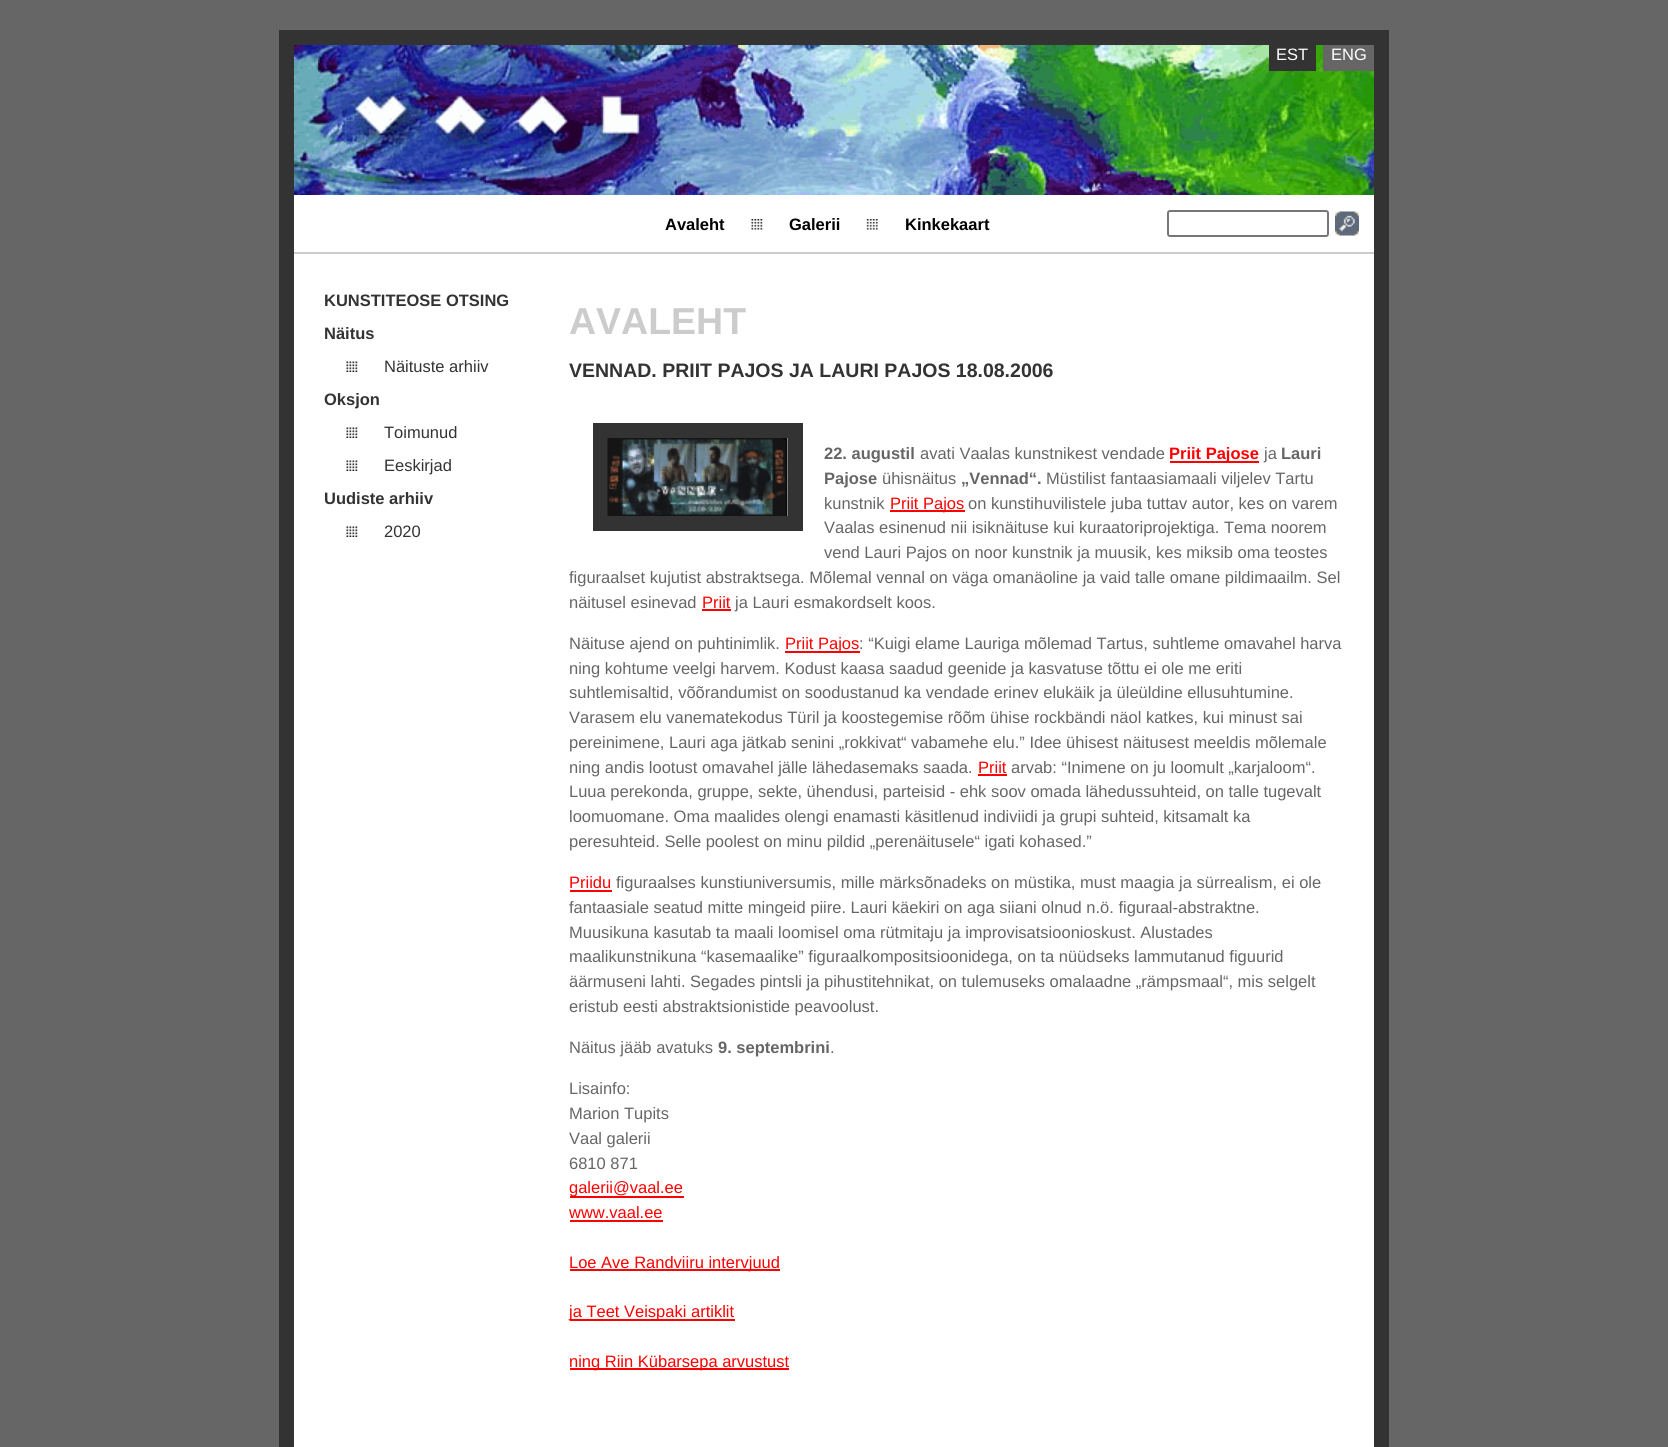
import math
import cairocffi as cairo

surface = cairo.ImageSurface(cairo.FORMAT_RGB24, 1668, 1447)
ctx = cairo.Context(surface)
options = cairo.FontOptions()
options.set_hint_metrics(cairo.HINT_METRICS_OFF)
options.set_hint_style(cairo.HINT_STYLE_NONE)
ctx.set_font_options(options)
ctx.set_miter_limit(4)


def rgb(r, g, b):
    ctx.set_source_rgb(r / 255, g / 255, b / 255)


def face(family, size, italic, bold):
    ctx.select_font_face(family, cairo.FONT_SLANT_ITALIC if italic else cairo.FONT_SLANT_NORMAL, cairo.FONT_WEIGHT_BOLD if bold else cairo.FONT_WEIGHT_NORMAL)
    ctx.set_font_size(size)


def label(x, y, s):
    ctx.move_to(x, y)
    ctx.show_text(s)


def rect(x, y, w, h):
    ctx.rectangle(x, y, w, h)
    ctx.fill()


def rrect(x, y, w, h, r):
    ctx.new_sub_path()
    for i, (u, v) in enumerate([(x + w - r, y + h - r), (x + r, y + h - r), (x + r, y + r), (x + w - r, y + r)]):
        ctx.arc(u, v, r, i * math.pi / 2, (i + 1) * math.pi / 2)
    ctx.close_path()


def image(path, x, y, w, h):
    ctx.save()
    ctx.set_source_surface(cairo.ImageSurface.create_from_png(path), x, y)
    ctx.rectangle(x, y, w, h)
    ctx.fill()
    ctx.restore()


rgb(102, 102, 102)
ctx.paint()
rgb(255, 255, 255)
rect(294, 195, 1080, 1252)
ctx.rectangle(286.5, 37.5, 1095, 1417)
rgb(51, 51, 51)
ctx.set_line_width(15)
ctx.stroke()
image('image0.png', 294, 45, 1080, 150)
rect(1269, 45, 47, 26)
face('Liberation Sans', 16.5, 0, 0)
rgb(255, 255, 255)
label(1276, 60, 'EST')
rgb(102, 102, 102)
rect(1323, 45, 51, 26)
rgb(255, 255, 255)
label(1331, 60, 'ENG')
rgb(204, 204, 204)
rect(294, 252, 1080, 2)
face('Liberation Sans', 16.5, 0, 1)
rgb(0, 0, 0)
label(665, 230, 'Avaleht')
image('image1.png', 751, 219, 12, 11)
label(789, 230, 'Galerii')
image('image2.png', 866, 219, 12, 11)
label(905, 230, 'Kinkekaart')
rrect(1168, 211, 160, 25, 2)
rgb(118, 118, 118)
ctx.set_line_width(2)
ctx.stroke()
image('image3.png', 1335, 211, 24, 25)
rgb(51, 51, 51)
label(324, 306, 'KUNSTITEOSE OTSING')
label(324, 339, 'Näitus')
image('image4.png', 346, 361, 12, 11)
face('Liberation Sans', 16.5, 0, 0)
label(384, 372, 'Näituste arhiiv')
face('Liberation Sans', 16.5, 0, 1)
label(324, 405, 'Oksjon')
image('image4.png', 346, 427, 12, 11)
face('Liberation Sans', 16.5, 0, 0)
label(384, 438, 'Toimunud')
image('image4.png', 346, 460, 12, 11)
label(384, 471, 'Eeskirjad')
face('Liberation Sans', 16.5, 0, 1)
label(324, 504, 'Uudiste arhiiv')
image('image4.png', 346, 526, 12, 11)
face('Liberation Sans', 16.5, 0, 0)
label(384, 537, '2020')
face('Liberation Sans', 37.5, 0, 1)
rgb(204, 204, 204)
label(569, 334, 'AVALEHT')
face('Liberation Sans', 19.5, 0, 1)
rgb(51, 51, 51)
label(569, 377, 'VENNAD. PRIIT PAJOS JA LAURI PAJOS 18.08.2006')
ctx.rectangle(600.5, 430.5, 195, 93)
ctx.set_line_width(15)
ctx.stroke()
image('image5.png', 607, 438, 181, 78)
face('Liberation Sans', 16.5, 0, 1)
rgb(102, 102, 102)
label(824, 459, '22. augustil')
face('Liberation Sans', 16.5, 0, 0)
label(920, 459, 'avati Vaalas kunstnikest vendade')
rgb(255, 0, 0)
rect(1170, 461, 89, 2)
face('Liberation Sans', 16.5, 0, 1)
label(1169, 459, 'Priit Pajose')
face('Liberation Sans', 16.5, 0, 0)
rgb(102, 102, 102)
label(1264, 459, 'ja')
face('Liberation Sans', 16.5, 0, 1)
label(1281, 459, 'Lauri')
label(824, 484, 'Pajose')
face('Liberation Sans', 16.5, 0, 0)
label(882, 484, 'ühisnäitus')
face('Liberation Sans', 16.5, 0, 1)
label(961, 484, '„Vennad“.')
face('Liberation Sans', 16.5, 0, 0)
label(1046, 484, 'Müstilist fantaasiamaali viljelev Tartu')
label(824, 509, 'kunstnik')
rgb(255, 0, 0)
rect(890, 510, 75, 2)
label(890, 509, 'Priit Pajos')
rgb(102, 102, 102)
label(968, 509, 'on kunstihuvilistele juba tuttav autor, kes on varem')
label(824, 533, 'Vaalas esinenud nii isiknäituse kui kuraatoriprojektiga. Tema noorem')
label(824, 558, 'vend Lauri Pajos on noor kunstnik ja muusik, kes miksib oma teostes')
label(569, 583, 'figuraalset kujutist abstraktsega. Mõlemal vennal on väga omanäoline ja vaid talle omane pildimaailm. Sel')
label(569, 608, 'näitusel esinevad')
rgb(255, 0, 0)
label(702, 608, 'Priit')
rect(702, 609, 29, 2)
rgb(102, 102, 102)
label(735, 608, 'ja Lauri esmakordselt koos.')
label(569, 649, 'Näituse ajend on puhtinimlik.')
rgb(255, 0, 0)
rect(785, 651, 75, 2)
label(785, 649, 'Priit Pajos')
rgb(102, 102, 102)
label(859, 649, ': “Kuigi elame Lauriga mõlemad Tartus, suhtleme omavahel harva')
label(569, 674, 'ning kohtume veelgi harvem. Kodust kaasa saadud geenide ja kasvatuse tõttu ei ole me eriti')
label(569, 698, 'suhtlemisaltid, võõrandumist on soodustanud ka vendade erinev elukäik ja üleüldine ellusuhtumine.')
label(569, 723, 'Varasem elu vanematekodus Türil ja koostegemise rõõm ühise rockbändi näol katkes, kui minust sai')
label(569, 748, 'pereinimene, Lauri aga jätkab senini „rokkivat“ vabamehe elu.” Idee ühisest näitusest meeldis mõlemale')
label(569, 773, 'ning andis lootust omavahel jälle lähedasemaks saada.')
rgb(255, 0, 0)
label(978, 773, 'Priit')
rect(978, 774, 29, 2)
rgb(102, 102, 102)
label(1011, 773, 'arvab: “Inimene on ju loomult „karjaloom“.')
label(569, 797, 'Luua perekonda, gruppe, sekte, ühendusi, parteisid - ehk soov omada lähedussuhteid, on talle tugevalt')
label(569, 822, 'loomuomane. Oma maalides olengi enamasti käsitlenud indiviidi ja grupi suhteid, kitsamalt ka')
label(569, 847, 'peresuhteid. Selle poolest on minu pildid „perenäitusele“ igati kohased.”')
rgb(255, 0, 0)
label(569, 888, 'Priidu')
rect(570, 890, 42, 2)
rgb(102, 102, 102)
label(616, 888, 'figuraalses kunstiuniversumis, mille märksõnadeks on müstika, must maagia ja sürrealism, ei ole')
label(569, 913, 'fantaasiale seatud mitte mingeid piire. Lauri käekiri on aga siiani olnud n.ö. figuraal-abstraktne.')
label(569, 938, 'Muusikuna kasutab ta maali loomisel oma rütmitaju ja improvisatsioonioskust. Alustades')
label(569, 962, 'maalikunstnikuna “kasemaalike” figuraalkompositsioonidega, on ta nüüdseks lammutanud figuurid')
label(569, 987, 'äärmuseni lahti. Segades pintsli ja pihustitehnikat, on tulemuseks omalaadne „rämpsmaal“, mis selgelt')
label(569, 1012, 'eristub eesti abstraktsionistide peavoolust.')
label(569, 1053, 'Näitus jääb avatuks')
face('Liberation Sans', 16.5, 0, 1)
label(718, 1053, '9. septembrini')
face('Liberation Sans', 16.5, 0, 0)
label(830, 1053, '.')
label(569, 1094, 'Lisainfo:')
label(569, 1119, 'Marion Tupits')
label(569, 1144, 'Vaal galerii')
label(569, 1169, '6810 871')
rgb(255, 0, 0)
rect(570, 1196, 114, 2)
label(569, 1193, 'galerii@vaal.ee')
label(569, 1218, 'www.vaal.ee')
rect(570, 1220, 93, 2)
rect(570, 1269, 210, 2)
label(569, 1268, 'Loe Ave Randviiru intervjuud')
rect(570, 1319, 165, 2)
label(569, 1317, 'ja Teet Veispaki artiklit')
rect(570, 1368, 219, 2)
label(569, 1367, 'ning Riin Kübarsepa arvustust')
surface.write_to_png('render.png')
